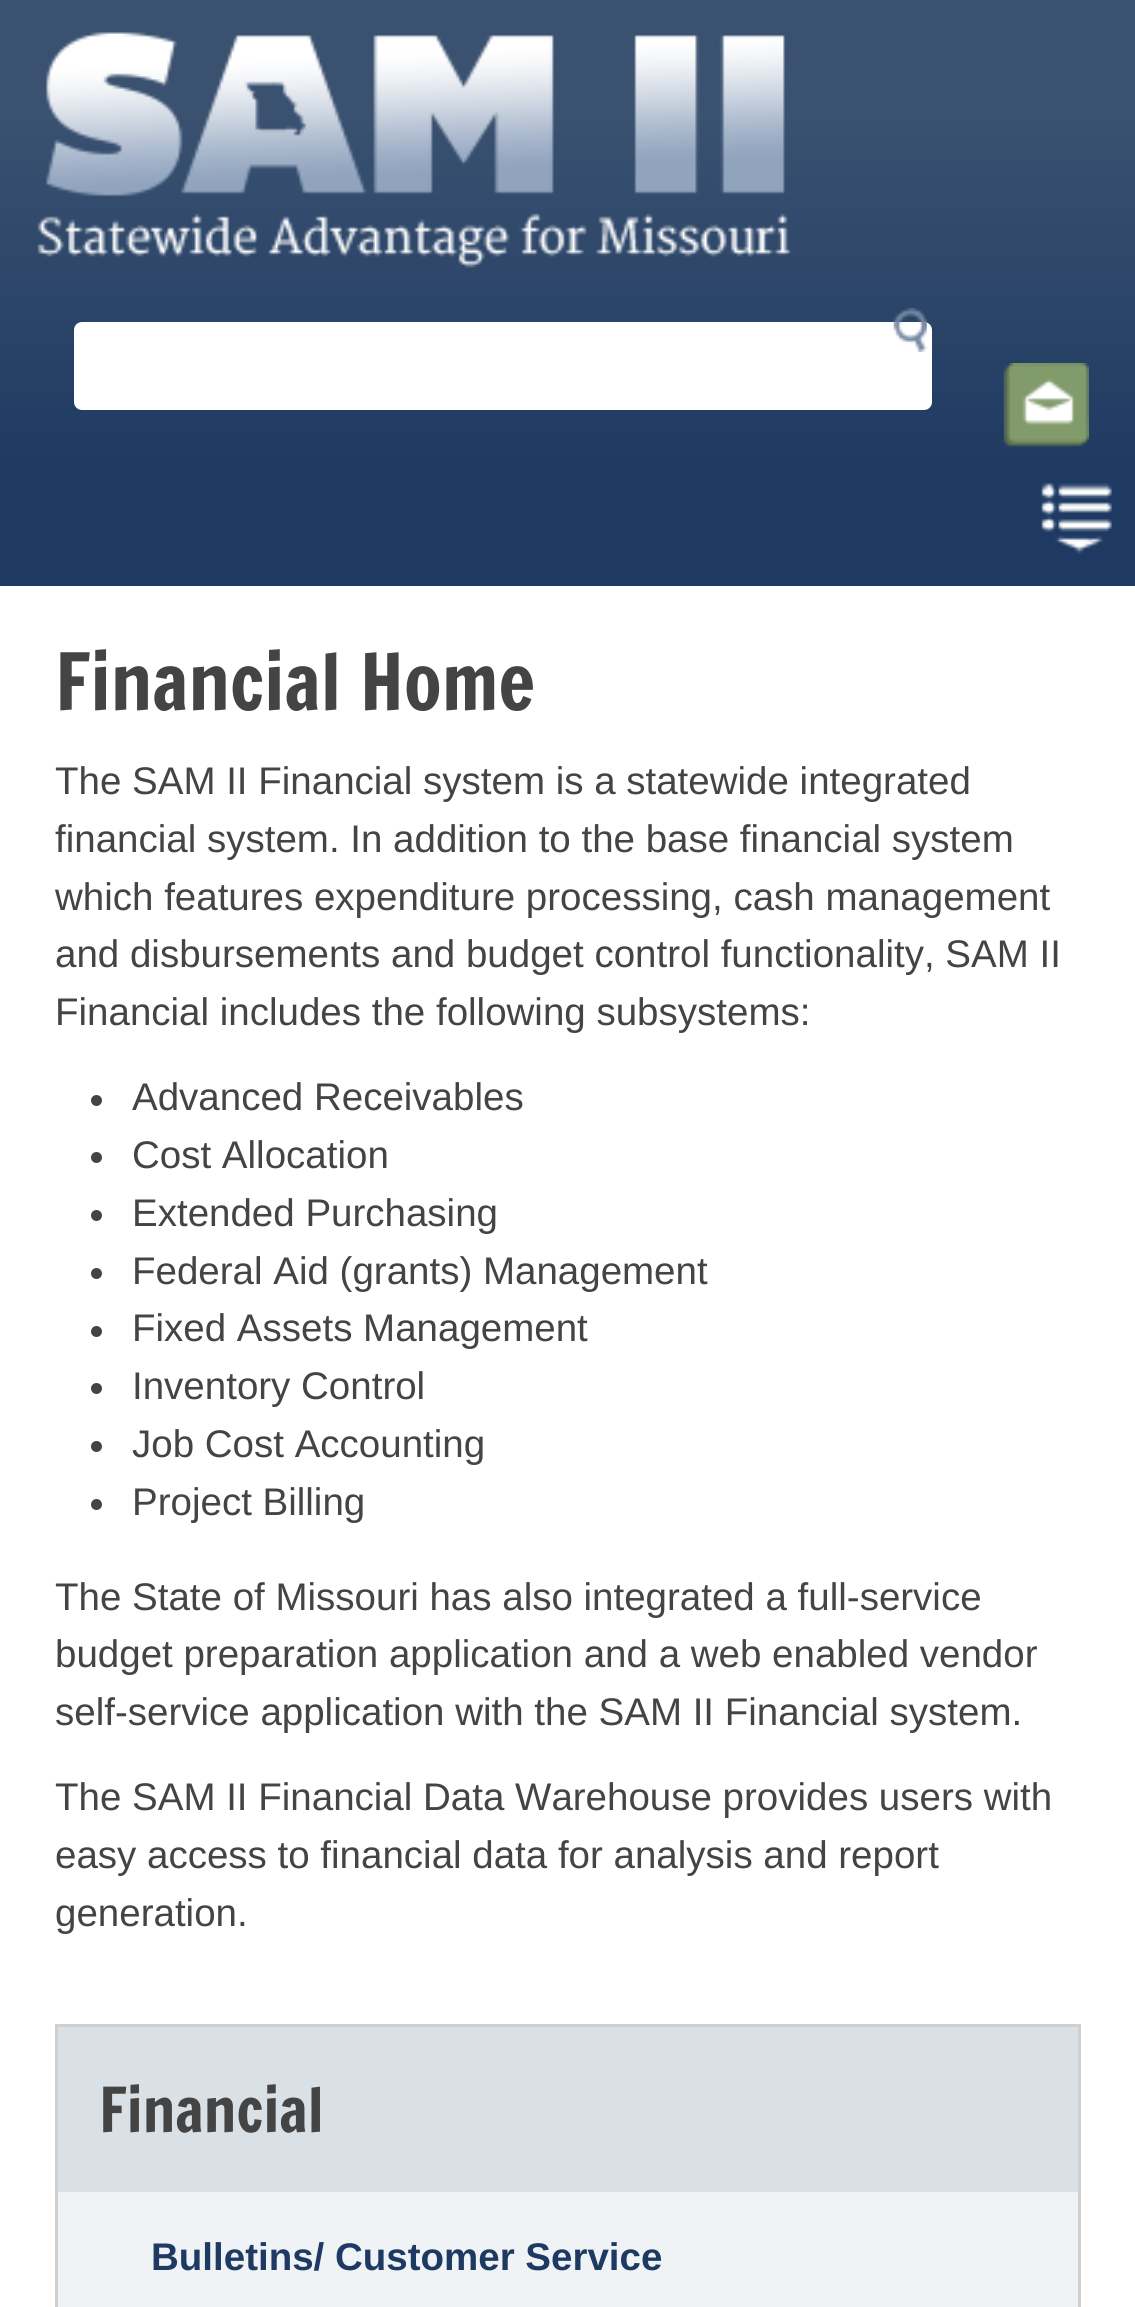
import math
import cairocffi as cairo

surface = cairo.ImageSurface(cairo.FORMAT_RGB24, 1135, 2307)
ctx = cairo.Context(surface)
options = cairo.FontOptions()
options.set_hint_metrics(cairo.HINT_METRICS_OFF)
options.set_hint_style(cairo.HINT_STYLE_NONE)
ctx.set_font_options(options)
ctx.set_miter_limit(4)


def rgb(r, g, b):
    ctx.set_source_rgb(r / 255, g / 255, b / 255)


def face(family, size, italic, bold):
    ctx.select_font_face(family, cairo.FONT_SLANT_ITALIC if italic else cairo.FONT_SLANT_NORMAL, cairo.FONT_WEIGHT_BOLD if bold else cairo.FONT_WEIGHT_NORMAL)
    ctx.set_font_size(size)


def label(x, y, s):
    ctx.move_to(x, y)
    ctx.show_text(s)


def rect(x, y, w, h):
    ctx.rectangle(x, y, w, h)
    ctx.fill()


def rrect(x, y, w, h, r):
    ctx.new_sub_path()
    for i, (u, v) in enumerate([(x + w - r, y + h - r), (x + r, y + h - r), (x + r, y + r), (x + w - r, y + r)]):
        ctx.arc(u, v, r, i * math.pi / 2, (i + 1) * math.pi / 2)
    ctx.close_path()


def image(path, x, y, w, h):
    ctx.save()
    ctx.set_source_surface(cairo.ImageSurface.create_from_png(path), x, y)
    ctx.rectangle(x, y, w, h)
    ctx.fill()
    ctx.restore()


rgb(255, 255, 255)
ctx.paint()
gradient = cairo.LinearGradient(568, 0, 568, 476)
gradient.add_color_stop_rgba(0, 0.227, 0.318, 0.439, 1)
gradient.add_color_stop_rgba(0.24, 0.227, 0.318, 0.439, 1)
gradient.add_color_stop_rgba(1, 0.118, 0.227, 0.384, 1)
ctx.set_source(gradient)
rect(0, 0, 1135, 476)
image('image0.png', 37, 32, 754, 236)
rgb(255, 255, 255)
rrect(74, 322, 858, 88, 8)
ctx.fill()
image('image1.png', 893, 308, 34, 44)
image('image2.png', 1003, 363, 86, 84)
rgb(30, 58, 98)
rect(0, 476, 1135, 110)
image('image3.png', 1041, 483, 71, 71)
face('Francois One', 77, 0, 0)
rgb(68, 68, 68)
label(55, 710, 'Financial Home')
face('Liberation Sans', 38.5, 0, 0)
label(55, 794, 'The SAM II Financial system is a statewide integrated')
label(55, 852, 'financial system. In addition to the base financial system')
label(55, 910, 'which features expenditure processing, cash management')
label(55, 967, 'and disbursements and budget control functionality, SAM II')
label(55, 1025, 'Financial includes the following subsystems:')
ctx.new_path()
ctx.arc(96.5, 1100.5, 5.5, 0, 2 * math.pi)
ctx.fill()
label(132, 1110, 'Advanced Receivables')
ctx.new_path()
ctx.arc(96.5, 1157.5, 5.5, 0, 2 * math.pi)
ctx.fill()
label(132, 1168, 'Cost Allocation')
ctx.new_path()
ctx.arc(96.5, 1215.5, 5.5, 0, 2 * math.pi)
ctx.fill()
label(132, 1226, 'Extended Purchasing')
ctx.new_path()
ctx.arc(96.5, 1273.5, 5.5, 0, 2 * math.pi)
ctx.fill()
label(132, 1284, 'Federal Aid (grants) Management')
ctx.new_path()
ctx.arc(96.5, 1331.5, 5.5, 0, 2 * math.pi)
ctx.fill()
label(132, 1341, 'Fixed Assets Management')
ctx.new_path()
ctx.arc(96.5, 1388.5, 5.5, 0, 2 * math.pi)
ctx.fill()
label(132, 1399, 'Inventory Control')
ctx.new_path()
ctx.arc(96.5, 1446.5, 5.5, 0, 2 * math.pi)
ctx.fill()
label(132, 1457, 'Job Cost Accounting')
ctx.new_path()
ctx.arc(96.5, 1504.5, 5.5, 0, 2 * math.pi)
ctx.fill()
label(132, 1515, 'Project Billing')
label(55, 1610, 'The State of Missouri has also integrated a full-service')
label(55, 1667, 'budget preparation application and a web enabled vendor')
label(55, 1725, 'self-service application with the SAM II Financial system.')
label(55, 1810, 'The SAM II Financial Data Warehouse provides users with')
label(55, 1868, 'easy access to financial data for analysis and report')
label(55, 1926, 'generation.')
rgb(239, 243, 246)
rect(58, 2192, 1020, 115)
ctx.rectangle(56.5, 2025.5, 1023, 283)
rgb(207, 207, 207)
ctx.set_line_width(3)
ctx.stroke()
rgb(218, 225, 230)
rect(58, 2027, 1020, 165)
face('Francois One', 60.5, 0, 0)
rgb(68, 68, 68)
label(99, 2132, 'Financial')
face('Liberation Sans', 38.5, 0, 1)
rgb(30, 58, 98)
label(151, 2270, 'Bulletins/ Customer Service')
surface.write_to_png('render.png')
